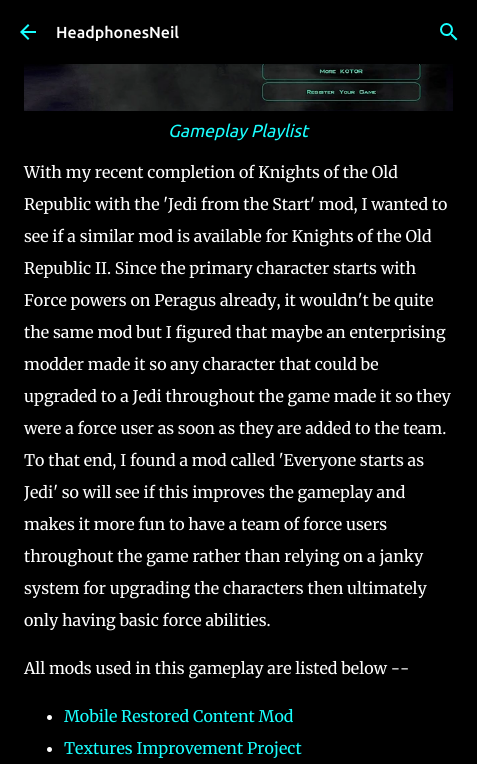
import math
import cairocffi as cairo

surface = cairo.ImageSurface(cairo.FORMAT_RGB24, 477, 764)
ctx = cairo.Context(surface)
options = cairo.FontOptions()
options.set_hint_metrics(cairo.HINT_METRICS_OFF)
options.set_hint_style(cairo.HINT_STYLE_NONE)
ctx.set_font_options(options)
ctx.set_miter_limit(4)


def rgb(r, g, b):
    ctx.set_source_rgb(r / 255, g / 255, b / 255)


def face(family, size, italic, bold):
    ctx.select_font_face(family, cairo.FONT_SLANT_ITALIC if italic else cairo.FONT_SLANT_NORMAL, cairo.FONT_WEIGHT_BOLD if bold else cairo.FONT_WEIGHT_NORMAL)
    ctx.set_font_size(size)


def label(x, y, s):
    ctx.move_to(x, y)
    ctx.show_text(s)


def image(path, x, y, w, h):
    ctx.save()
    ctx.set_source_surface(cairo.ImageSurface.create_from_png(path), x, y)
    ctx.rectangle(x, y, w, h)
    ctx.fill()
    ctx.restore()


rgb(0, 0, 0)
ctx.paint()
image('image0.png', 20, 24, 16, 16)
face('Ubuntu Medium', 16, 0, 0)
rgb(255, 255, 255)
label(56, 38, 'HeadphonesNeil')
image('image1.png', 440, 23, 18, 18)
image('image2.png', 24, 64, 429, 47)
face('Ubuntu', 17.5, 1, 0)
rgb(24, 255, 255)
label(168, 137, 'Gameplay Playlist')
face('Merriweather Light', 16, 0, 0)
rgb(255, 255, 255)
label(24, 178, 'With my recent completion of Knights of the Old')
label(24, 210, 'Republic with the \'Jedi from the Start\' mod, I wanted to')
label(24, 242, 'see if a similar mod is available for Knights of the Old')
label(24, 274, 'Republic II. Since the primary character starts with')
label(24, 306, 'Force powers on Peragus already, it wouldn\'t be quite')
label(24, 338, 'the same mod but I figured that maybe an enterprising')
label(24, 370, 'modder made it so any character that could be')
label(24, 402, 'upgraded to a Jedi throughout the game made it so they')
label(24, 434, 'were a force user as soon as they are added to the team.')
label(24, 466, 'To that end, I found a mod called \'Everyone starts as')
label(24, 498, 'Jedi\' so will see if this improves the gameplay and')
label(24, 530, 'makes it more fun to have a team of force users')
label(24, 562, 'throughout the game rather than relying on a janky')
label(24, 594, 'system for upgrading the characters then ultimately')
label(24, 626, 'only having basic force abilities.')
label(24, 674, 'All mods used in this gameplay are listed below --')
ctx.new_path()
ctx.arc(49.5, 717.5, 2.5, 0, 2 * math.pi)
ctx.fill()
rgb(24, 255, 255)
label(64, 722, 'Mobile Restored Content Mod')
rgb(255, 255, 255)
ctx.new_path()
ctx.arc(49.5, 749.5, 2.5, 0, 2 * math.pi)
ctx.fill()
rgb(24, 255, 255)
label(64, 754, 'Textures Improvement Project')
surface.write_to_png('render.png')
